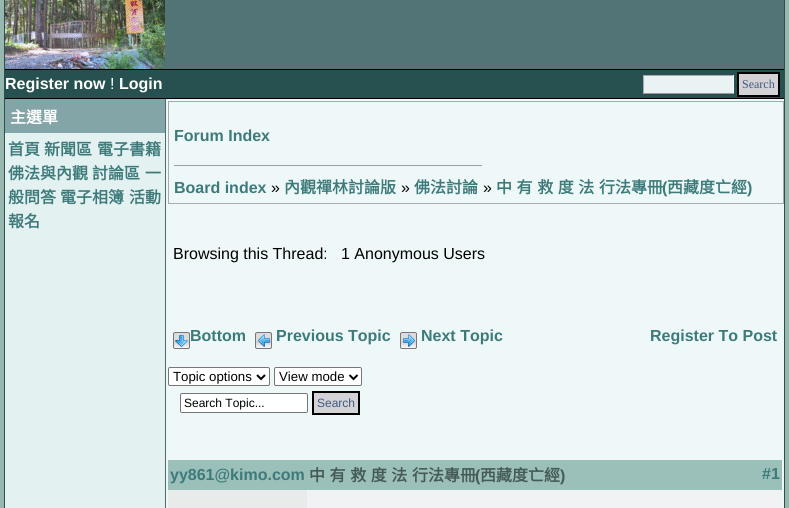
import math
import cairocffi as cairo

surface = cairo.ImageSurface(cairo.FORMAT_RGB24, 789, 508)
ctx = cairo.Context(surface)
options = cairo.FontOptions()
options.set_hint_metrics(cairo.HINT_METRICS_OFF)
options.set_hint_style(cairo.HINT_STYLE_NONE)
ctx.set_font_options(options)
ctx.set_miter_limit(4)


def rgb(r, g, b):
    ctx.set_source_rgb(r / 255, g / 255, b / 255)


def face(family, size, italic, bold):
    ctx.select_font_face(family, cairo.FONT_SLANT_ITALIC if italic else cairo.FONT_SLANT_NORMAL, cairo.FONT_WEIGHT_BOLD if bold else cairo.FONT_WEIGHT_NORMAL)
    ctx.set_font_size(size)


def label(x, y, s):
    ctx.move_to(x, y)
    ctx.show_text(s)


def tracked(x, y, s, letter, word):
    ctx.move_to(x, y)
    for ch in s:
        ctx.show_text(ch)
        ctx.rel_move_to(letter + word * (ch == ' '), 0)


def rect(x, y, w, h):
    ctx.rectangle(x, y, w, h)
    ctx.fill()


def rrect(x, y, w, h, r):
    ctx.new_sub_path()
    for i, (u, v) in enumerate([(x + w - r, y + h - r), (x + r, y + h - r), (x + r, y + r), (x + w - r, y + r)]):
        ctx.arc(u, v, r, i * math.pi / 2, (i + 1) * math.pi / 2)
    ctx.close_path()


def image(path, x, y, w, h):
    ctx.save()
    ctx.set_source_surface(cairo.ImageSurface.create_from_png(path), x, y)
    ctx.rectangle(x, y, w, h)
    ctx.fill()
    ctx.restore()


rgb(151, 183, 175)
ctx.paint()
rgb(239, 248, 248)
rect(166, 99, 618, 409)
rgb(0, 0, 0)
rect(4, 69, 781, 1)
rect(4, 98, 781, 1)
rgb(40, 81, 81)
rect(784, 0, 1, 508)
rect(4, 0, 1, 508)
rgb(83, 116, 119)
rect(165, 0, 619, 69)
image('image0.png', 5, 0, 160, 69)
rgb(39, 80, 80)
rect(5, 70, 779, 28)
face('Liberation Sans', 16, 0, 1)
rgb(255, 255, 255)
label(5, 89, 'Register now')
face('Liberation Sans', 16, 0, 0)
label(110, 89, '!')
face('Liberation Sans', 16, 0, 1)
label(119, 89, 'Login')
rgb(233, 243, 243)
rect(644, 76, 89, 17)
rgb(168, 169, 169)
rect(643, 75, 91, 1)
rgb(252, 254, 254)
rect(733, 75, 1, 19)
rgb(153, 153, 153)
rect(643, 93, 91, 1)
rgb(168, 169, 169)
rect(643, 75, 1, 19)
rgb(211, 210, 214)
ctx.rectangle(738, 73, 41, 23)
ctx.fill_preserve()
rgb(0, 0, 0)
ctx.stroke()
face('Liberation Serif', 12, 0, 0)
rgb(64, 90, 128)
label(742, 88, 'Search')
rgb(228, 241, 241)
rect(5, 133, 160, 375)
rgb(78, 107, 109)
rect(165, 99, 1, 409)
rgb(132, 165, 168)
rect(5, 99, 160, 34)
face('Noto Sans CJK TC', 16, 0, 1)
rgb(255, 255, 255)
label(10, 123, '主選單')
rgb(61, 122, 122)
label(8, 155, '首頁')
label(44, 155, '新聞區')
label(97, 155, '電子書籍')
label(8, 179, '佛法與內觀')
label(92, 179, '討論區')
label(145, 179, '一')
label(8, 203, '般問答')
label(60, 203, '電子相簿')
label(129, 203, '活動')
label(8, 227, '報名')
ctx.rectangle(168.5, 101.5, 615, 102)
rgb(170, 170, 170)
ctx.set_line_width(1)
ctx.stroke()
face('Liberation Sans', 16, 0, 1)
rgb(61, 122, 122)
label(174, 141, 'Forum Index')
rgb(159, 159, 159)
rect(174, 165, 309, 1)
rgb(238, 238, 238)
rect(482, 165, 1, 1)
rgb(61, 122, 122)
label(174, 193, 'Board index')
face('Liberation Sans', 16, 0, 0)
rgb(0, 0, 0)
label(271, 193, '»')
face('Noto Sans CJK TC', 16, 0, 1)
rgb(61, 122, 122)
label(284, 193, '內觀禪林討論版')
face('Liberation Sans', 16, 0, 0)
rgb(0, 0, 0)
label(401, 193, '»')
face('Noto Sans CJK TC', 16, 0, 1)
rgb(61, 122, 122)
label(414, 193, '佛法討論')
face('Liberation Sans', 16, 0, 0)
rgb(0, 0, 0)
label(483, 193, '»')
face('Noto Sans CJK TC', 16, 0, 1)
rgb(61, 122, 122)
tracked(496, 193, '中 有 救 度 法 行法專冊', 0, 1)
face('Liberation Sans', 16, 0, 1)
label(662, 193, '(')
face('Noto Sans CJK TC', 16, 0, 1)
label(667, 193, '西藏度亡經')
face('Liberation Sans', 16, 0, 1)
label(747, 193, ')')
face('Liberation Sans', 16, 0, 0)
rgb(0, 0, 0)
label(173, 259, 'Browsing this Thread:')
label(341, 259, '1 Anonymous Users')
image('image1.png', 173, 332, 17, 17)
face('Liberation Sans', 16, 0, 1)
rgb(61, 122, 122)
label(190, 341, 'Bottom')
image('image2.png', 255, 332, 17, 17)
label(276, 341, 'Previous Topic')
image('image3.png', 400, 332, 17, 17)
label(421, 341, 'Next Topic')
label(650, 341, 'Register To Post')
rgb(255, 255, 255)
rrect(168.5, 367.5, 101, 18, 1.5)
ctx.fill_preserve()
rgb(118, 118, 118)
ctx.stroke()
ctx.new_path()
ctx.move_to(257, 375)
ctx.line_to(261, 379)
ctx.line_to(265, 375)
rgb(0, 0, 0)
ctx.set_line_width(2)
ctx.stroke()
face('Liberation Sans', 13.25, 0, 0)
label(173, 381, 'Topic options')
rgb(255, 255, 255)
rrect(274.5, 367.5, 87, 18, 1.5)
ctx.fill_preserve()
rgb(118, 118, 118)
ctx.set_line_width(1)
ctx.stroke()
ctx.new_path()
ctx.move_to(349.5, 375)
ctx.line_to(353.5, 379)
ctx.line_to(357.5, 375)
rgb(0, 0, 0)
ctx.set_line_width(2)
ctx.stroke()
label(279, 381, 'View mode')
rgb(255, 255, 255)
rrect(180.5, 393.5, 127, 19, 1.5)
ctx.fill_preserve()
rgb(118, 118, 118)
ctx.set_line_width(1)
ctx.stroke()
face('Liberation Sans', 12, 0, 0)
rgb(0, 0, 0)
label(184, 407, 'Search Topic...')
rgb(211, 210, 214)
ctx.rectangle(313, 392, 46, 22)
ctx.fill_preserve()
rgb(0, 0, 0)
ctx.set_line_width(2)
ctx.stroke()
rgb(64, 90, 128)
label(317, 407, 'Search')
rgb(155, 191, 185)
rect(168, 460, 614, 30)
face('Liberation Sans', 16, 0, 1)
rgb(61, 122, 122)
label(170, 480, 'yy861@kimo.com')
face('Noto Sans CJK TC', 16, 0, 1)
rgb(69, 90, 86)
tracked(309, 481, '中 有 救 度 法 行法專冊', 0, 1)
face('Liberation Sans', 16, 0, 1)
label(475, 481, '(')
face('Noto Sans CJK TC', 16, 0, 1)
label(480, 481, '西藏度亡經')
face('Liberation Sans', 16, 0, 1)
label(560, 481, ')')
rgb(61, 122, 122)
label(762, 479, '#1')
rgb(231, 235, 234)
rect(168, 490, 139, 18)
rgb(240, 242, 244)
rect(307, 490, 475, 18)
surface.write_to_png('render.png')
